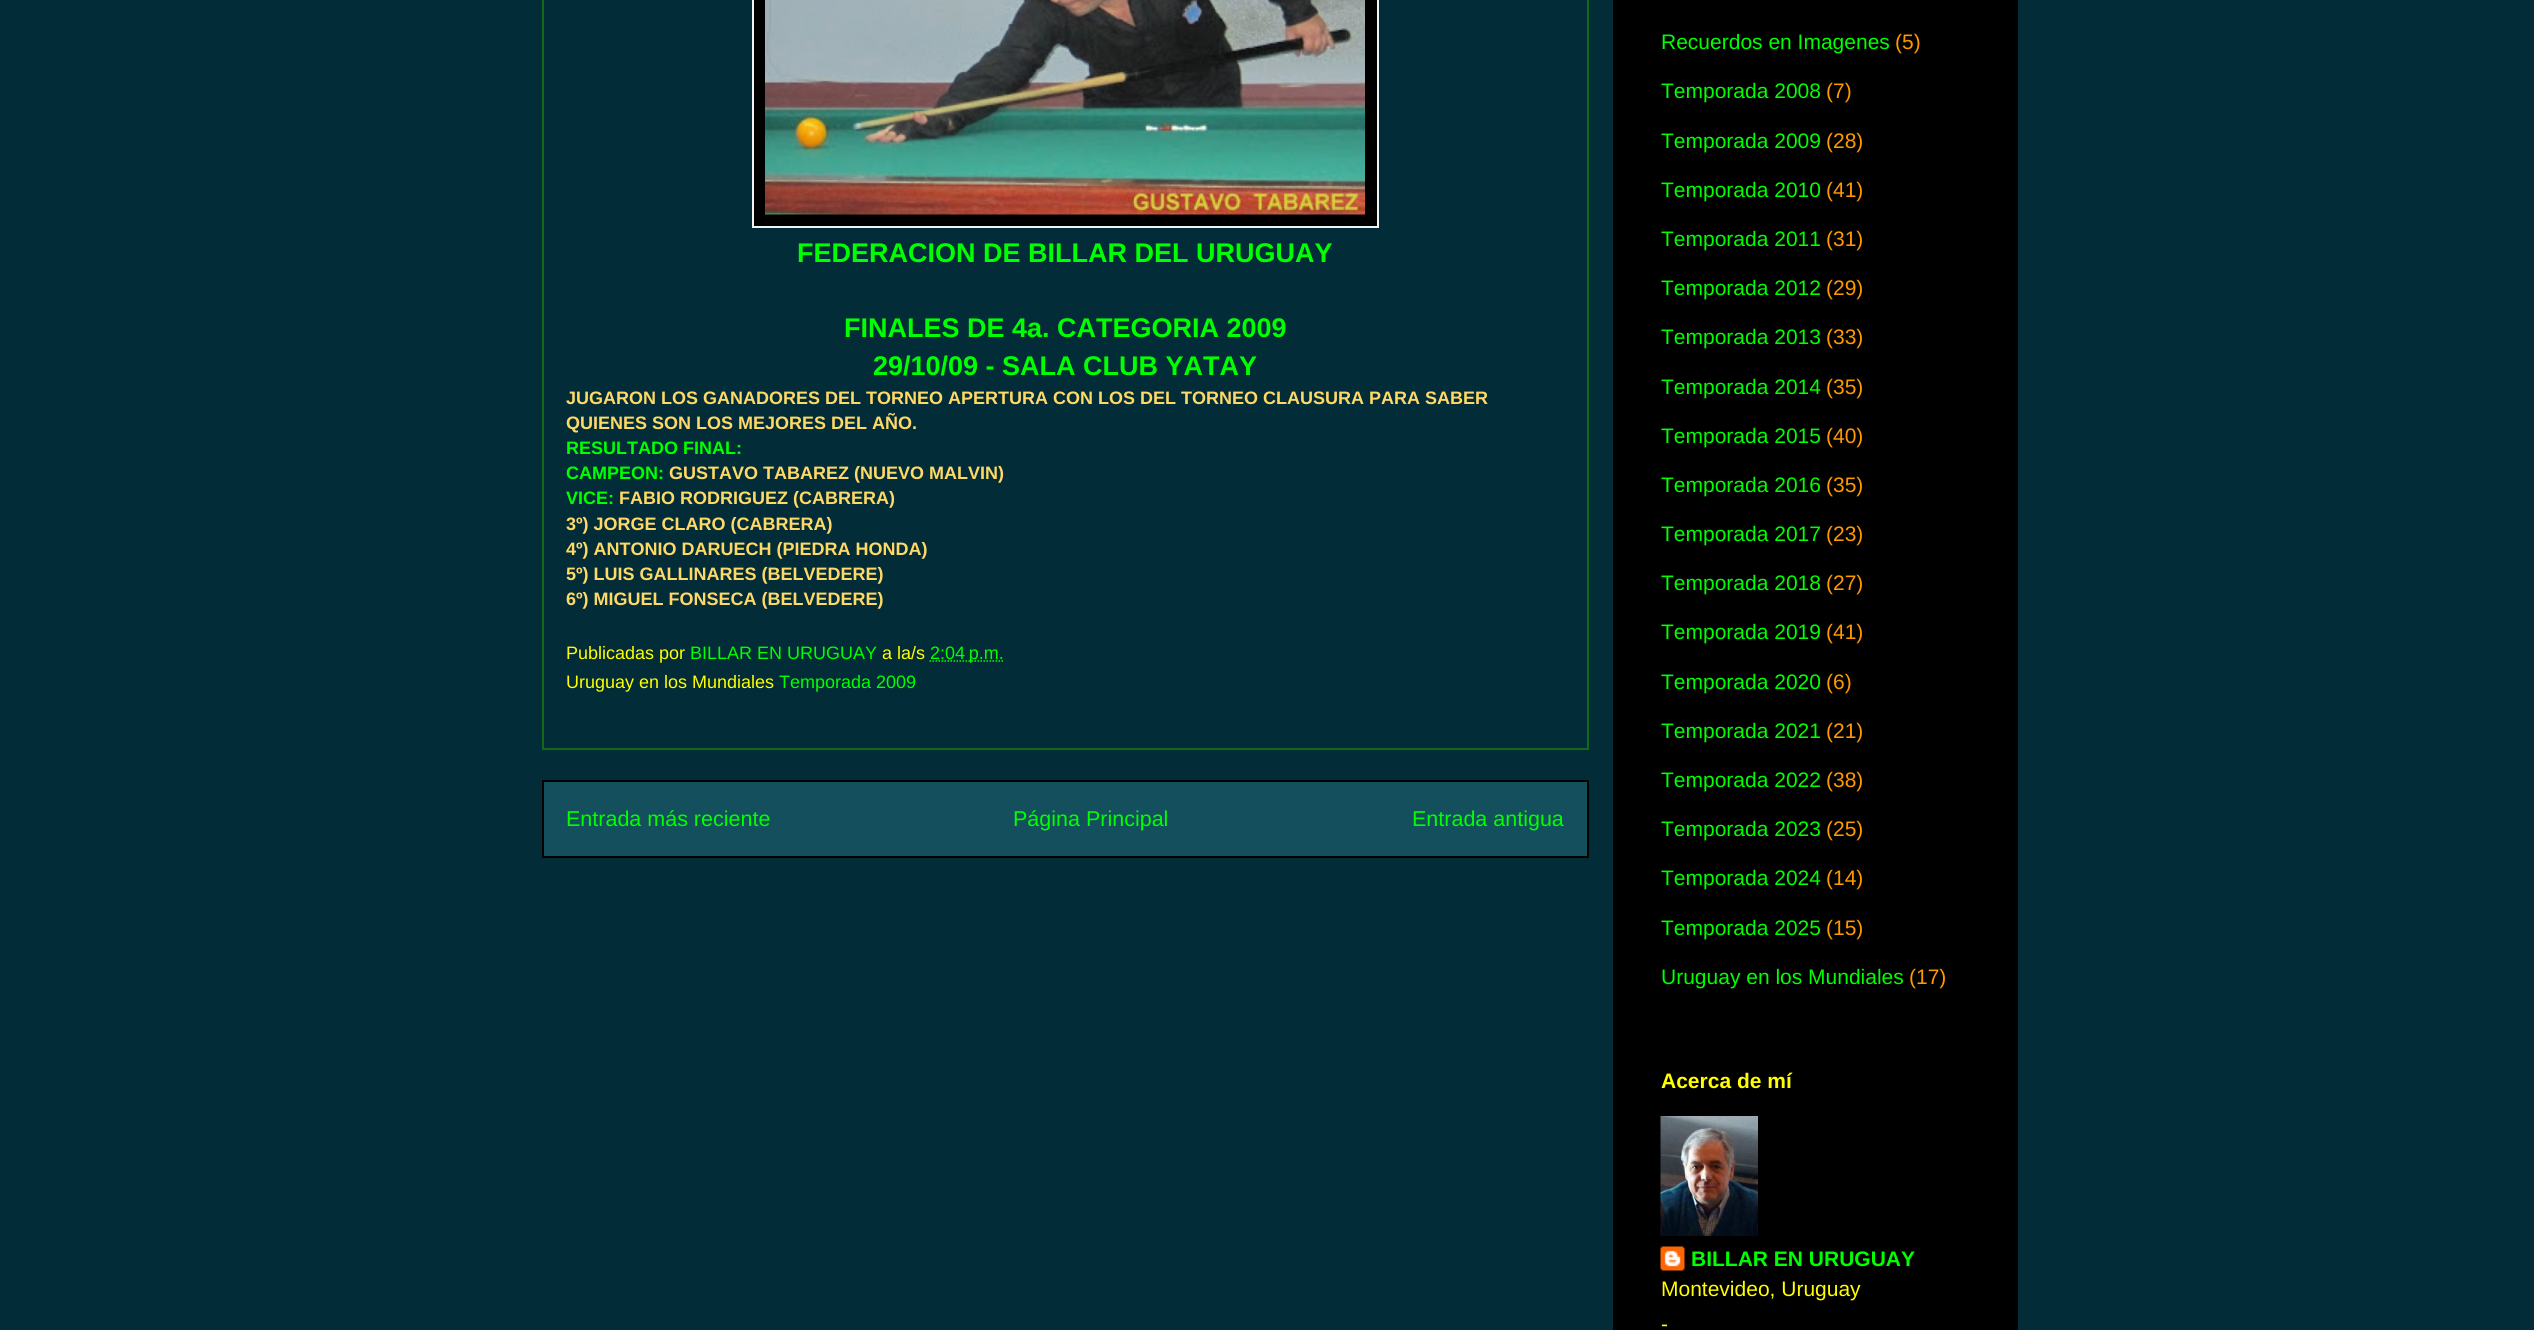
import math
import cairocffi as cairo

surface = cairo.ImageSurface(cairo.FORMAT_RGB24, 2534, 1330)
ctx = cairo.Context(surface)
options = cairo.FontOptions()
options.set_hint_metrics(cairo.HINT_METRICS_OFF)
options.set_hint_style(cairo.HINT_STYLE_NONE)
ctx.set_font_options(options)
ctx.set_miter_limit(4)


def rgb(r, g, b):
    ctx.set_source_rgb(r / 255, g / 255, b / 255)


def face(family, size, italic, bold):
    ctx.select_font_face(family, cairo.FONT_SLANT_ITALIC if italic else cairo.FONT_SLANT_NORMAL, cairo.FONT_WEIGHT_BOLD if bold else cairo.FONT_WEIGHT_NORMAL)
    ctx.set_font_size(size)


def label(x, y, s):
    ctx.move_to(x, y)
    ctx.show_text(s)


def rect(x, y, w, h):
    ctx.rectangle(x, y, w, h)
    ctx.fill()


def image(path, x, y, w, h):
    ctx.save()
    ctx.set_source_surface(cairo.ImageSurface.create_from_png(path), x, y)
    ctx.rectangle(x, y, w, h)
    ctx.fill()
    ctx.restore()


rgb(2, 44, 55)
ctx.paint()
ctx.rectangle(543, -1, 1045, 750)
rgb(19, 104, 27)
ctx.stroke()
rgb(0, 0, 0)
ctx.rectangle(753, -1, 625, 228)
ctx.fill_preserve()
rgb(243, 243, 243)
ctx.stroke()
image('image0.png', 765, 0, 600, 215)
face('Liberation Sans', 27, 0, 1)
rgb(0, 255, 0)
label(797, 262, 'FEDERACION DE BILLAR DEL URUGUAY')
label(844, 337, 'FINALES DE 4a. CATEGORIA 2009')
label(873, 375, '29/10/09 - SALA CLUB YATAY')
face('Liberation Sans', 18, 0, 1)
rgb(255, 217, 102)
label(566, 404, 'JUGARON LOS GANADORES DEL TORNEO APERTURA CON LOS DEL TORNEO CLAUSURA PARA SABER')
label(566, 429, 'QUIENES SON LOS MEJORES DEL AÑO.')
rgb(0, 255, 0)
label(566, 454, 'RESULTADO FINAL:')
label(566, 479, 'CAMPEON:')
rgb(255, 217, 102)
label(669, 479, 'GUSTAVO TABAREZ (NUEVO MALVIN)')
rgb(0, 255, 0)
label(566, 504, 'VICE:')
rgb(255, 217, 102)
label(619, 504, 'FABIO RODRIGUEZ (CABRERA)')
label(566, 530, '3º) JORGE CLARO (CABRERA)')
label(566, 555, '4º) ANTONIO DARUECH (PIEDRA HONDA)')
label(566, 580, '5º) LUIS GALLINARES (BELVEDERE)')
label(566, 605, '6º) MIGUEL FONSECA (BELVEDERE)')
face('Liberation Sans', 18, 0, 0)
rgb(255, 255, 0)
label(566, 659, 'Publicadas por')
rgb(0, 255, 0)
label(690, 659, 'BILLAR EN URUGUAY')
rgb(255, 255, 0)
label(882, 659, 'a la/s')
ctx.new_path()
ctx.move_to(929.5, 661)
ctx.line_to(1003.5, 661)
rgb(0, 255, 0)
ctx.set_line_width(1.5)
ctx.set_dash([1.5, 1.5])
ctx.stroke()
label(930, 659, '2:04 p.m.')
rgb(255, 255, 0)
label(566, 688, 'Uruguay en los Mundiales')
rgb(0, 255, 0)
label(779, 688, 'Temporada 2009')
rgb(19, 79, 92)
ctx.rectangle(543, 781, 1045, 76)
ctx.fill_preserve()
rgb(0, 0, 0)
ctx.set_line_width(2)
ctx.set_dash([])
ctx.stroke()
face('Liberation Sans', 21.5, 0, 0)
rgb(0, 255, 0)
label(566, 826, 'Entrada más reciente')
label(1013, 826, 'Página Principal')
label(1412, 826, 'Entrada antigua')
rgb(0, 0, 0)
rect(1613, 0, 405, 1330)
face('Liberation Sans', 21, 0, 0)
rgb(0, 255, 0)
label(1661, 49, 'Recuerdos en Imagenes')
rgb(255, 153, 0)
label(1895, 49, '(5)')
rgb(0, 255, 0)
label(1661, 98, 'Temporada 2008')
rgb(255, 153, 0)
label(1826, 98, '(7)')
rgb(0, 255, 0)
label(1661, 148, 'Temporada 2009')
rgb(255, 153, 0)
label(1826, 148, '(28)')
rgb(0, 255, 0)
label(1661, 197, 'Temporada 2010')
rgb(255, 153, 0)
label(1826, 197, '(41)')
rgb(0, 255, 0)
label(1661, 246, 'Temporada 2011')
rgb(255, 153, 0)
label(1826, 246, '(31)')
rgb(0, 255, 0)
label(1661, 295, 'Temporada 2012')
rgb(255, 153, 0)
label(1826, 295, '(29)')
rgb(0, 255, 0)
label(1661, 344, 'Temporada 2013')
rgb(255, 153, 0)
label(1826, 344, '(33)')
rgb(0, 255, 0)
label(1661, 394, 'Temporada 2014')
rgb(255, 153, 0)
label(1826, 394, '(35)')
rgb(0, 255, 0)
label(1661, 443, 'Temporada 2015')
rgb(255, 153, 0)
label(1826, 443, '(40)')
rgb(0, 255, 0)
label(1661, 492, 'Temporada 2016')
rgb(255, 153, 0)
label(1826, 492, '(35)')
rgb(0, 255, 0)
label(1661, 541, 'Temporada 2017')
rgb(255, 153, 0)
label(1826, 541, '(23)')
rgb(0, 255, 0)
label(1661, 590, 'Temporada 2018')
rgb(255, 153, 0)
label(1826, 590, '(27)')
rgb(0, 255, 0)
label(1661, 639, 'Temporada 2019')
rgb(255, 153, 0)
label(1826, 639, '(41)')
rgb(0, 255, 0)
label(1661, 689, 'Temporada 2020')
rgb(255, 153, 0)
label(1826, 689, '(6)')
rgb(0, 255, 0)
label(1661, 738, 'Temporada 2021')
rgb(255, 153, 0)
label(1826, 738, '(21)')
rgb(0, 255, 0)
label(1661, 787, 'Temporada 2022')
rgb(255, 153, 0)
label(1826, 787, '(38)')
rgb(0, 255, 0)
label(1661, 836, 'Temporada 2023')
rgb(255, 153, 0)
label(1826, 836, '(25)')
rgb(0, 255, 0)
label(1661, 885, 'Temporada 2024')
rgb(255, 153, 0)
label(1826, 885, '(14)')
rgb(0, 255, 0)
label(1661, 935, 'Temporada 2025')
rgb(255, 153, 0)
label(1826, 935, '(15)')
rgb(0, 255, 0)
label(1661, 984, 'Uruguay en los Mundiales')
rgb(255, 153, 0)
label(1909, 984, '(17)')
face('Liberation Sans', 21, 0, 1)
rgb(255, 255, 0)
label(1661, 1088, 'Acerca de mí')
image('image1.png', 1660, 1116, 98, 120)
image('image2.png', 1660, 1246, 25, 25)
rgb(0, 255, 0)
label(1691, 1266, 'BILLAR EN URUGUAY')
face('Liberation Sans', 21, 0, 0)
rgb(255, 255, 0)
label(1661, 1296, 'Montevideo, Uruguay')
label(1661, 1331, '-')
surface.write_to_png('render.png')
